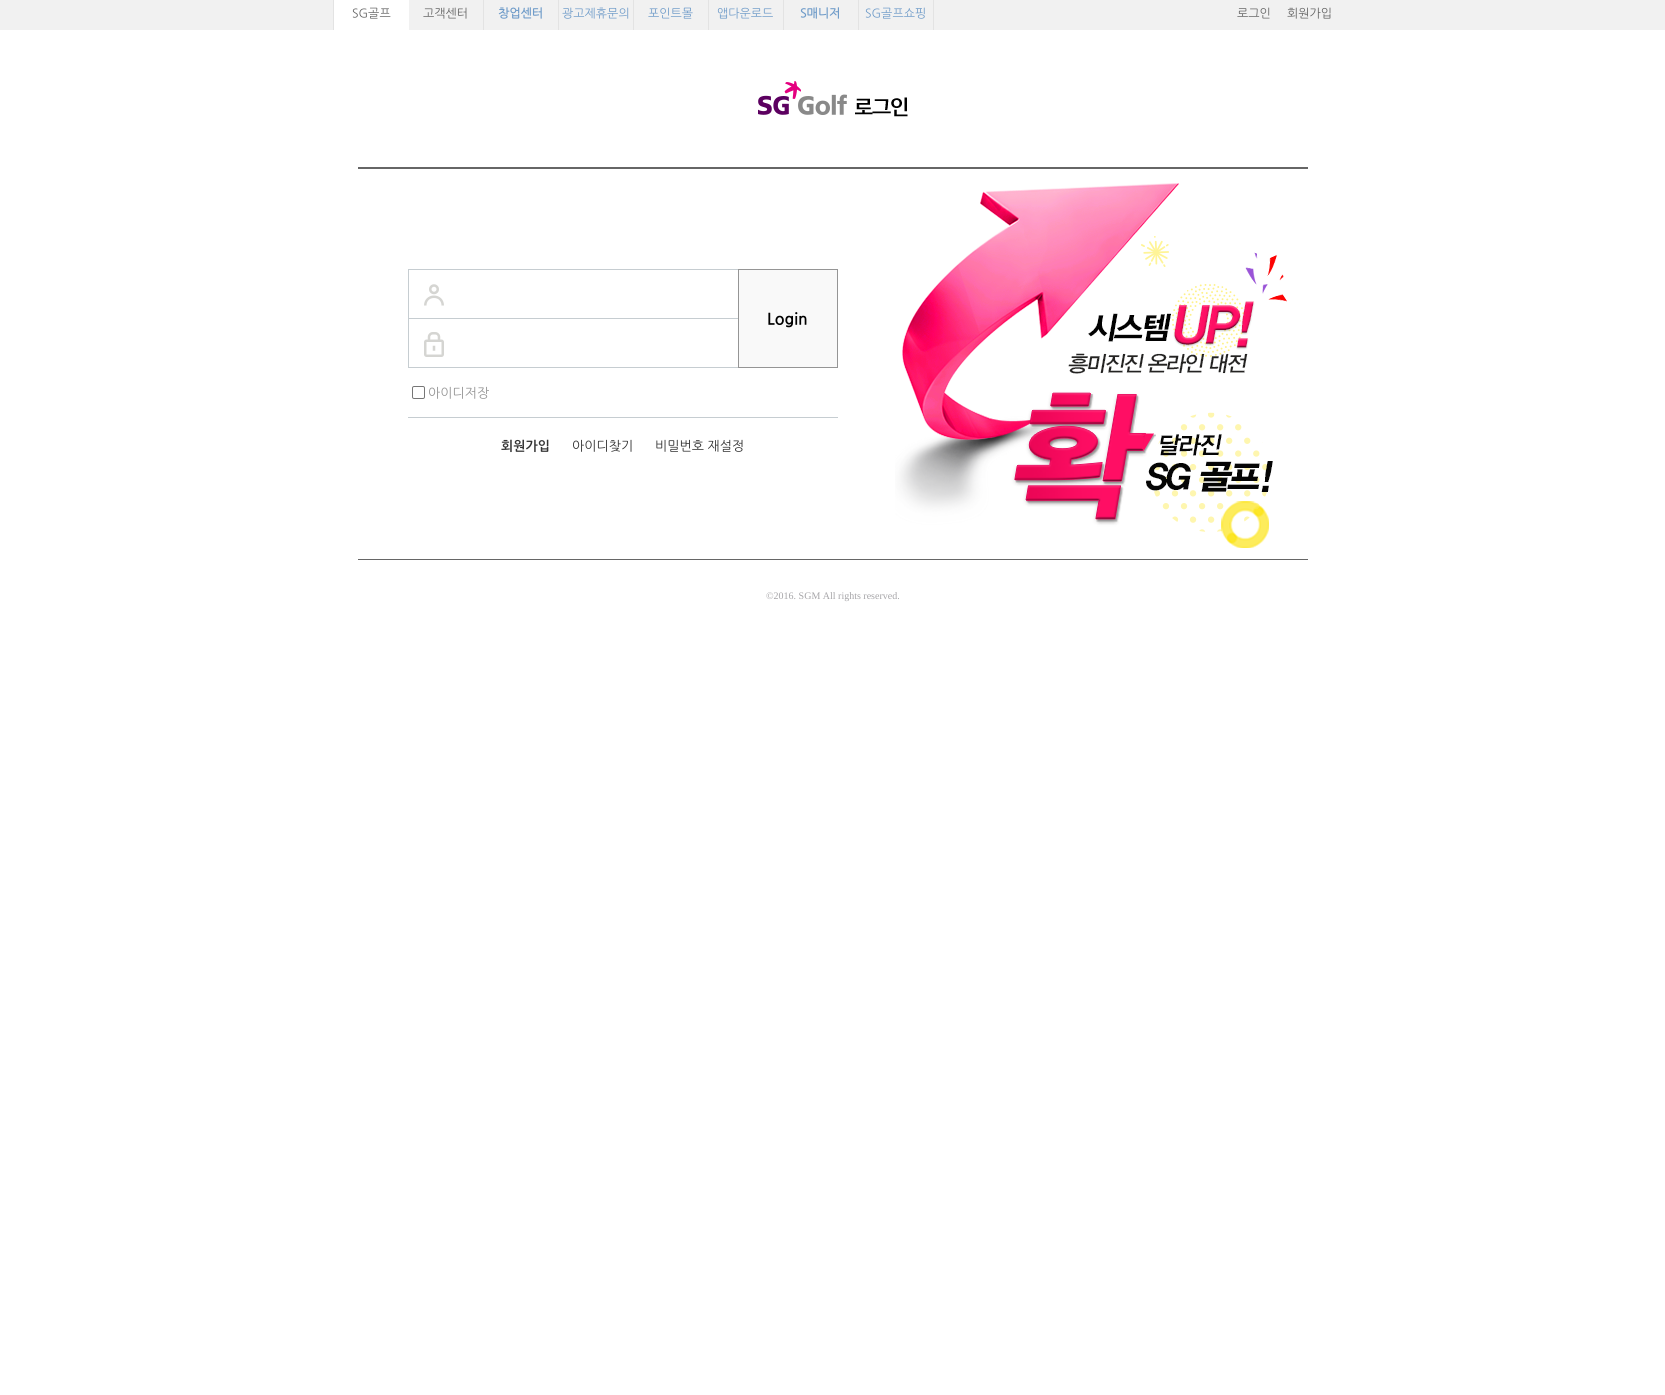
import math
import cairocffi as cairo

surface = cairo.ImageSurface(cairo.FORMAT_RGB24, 1665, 1395)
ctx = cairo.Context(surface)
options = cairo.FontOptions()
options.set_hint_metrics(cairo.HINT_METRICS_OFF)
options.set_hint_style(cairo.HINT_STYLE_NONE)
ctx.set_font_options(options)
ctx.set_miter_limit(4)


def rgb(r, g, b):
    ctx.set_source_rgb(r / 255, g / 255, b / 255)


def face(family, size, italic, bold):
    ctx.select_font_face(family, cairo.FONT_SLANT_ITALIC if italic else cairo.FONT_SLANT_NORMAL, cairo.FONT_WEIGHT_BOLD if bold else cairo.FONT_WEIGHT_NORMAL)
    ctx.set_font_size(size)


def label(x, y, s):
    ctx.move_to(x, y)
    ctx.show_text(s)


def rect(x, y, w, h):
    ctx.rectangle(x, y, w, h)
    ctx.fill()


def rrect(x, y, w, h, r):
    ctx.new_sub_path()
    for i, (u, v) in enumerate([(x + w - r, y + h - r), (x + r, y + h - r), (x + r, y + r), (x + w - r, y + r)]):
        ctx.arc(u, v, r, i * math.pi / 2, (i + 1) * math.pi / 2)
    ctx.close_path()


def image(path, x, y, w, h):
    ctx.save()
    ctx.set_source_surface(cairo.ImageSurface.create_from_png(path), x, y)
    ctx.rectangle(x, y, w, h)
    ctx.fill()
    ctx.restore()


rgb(255, 255, 255)
ctx.paint()
rgb(241, 241, 241)
rect(0, 0, 1665, 30)
rgb(227, 227, 227)
rect(333, 0, 1, 30)
rgb(255, 255, 255)
rect(334, 0, 75, 30)
face('NanumGothic', 12, 0, 0)
rgb(99, 99, 99)
label(352, 17, 'SG골프')
rgb(227, 227, 227)
rect(483, 0, 1, 30)
rgb(99, 99, 99)
label(423, 17, '고객센터')
rgb(227, 227, 227)
rect(558, 0, 1, 30)
face('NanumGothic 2', 12, 0, 1)
rgb(112, 156, 201)
label(498, 17, '창업센터')
rgb(227, 227, 227)
rect(633, 0, 1, 30)
face('NanumGothic', 12, 0, 0)
rgb(112, 156, 201)
label(562, 17, '광고제휴문의')
rgb(227, 227, 227)
rect(708, 0, 1, 30)
rgb(112, 156, 201)
label(648, 17, '포인트몰')
rgb(227, 227, 227)
rect(783, 0, 1, 30)
rgb(112, 156, 201)
label(717, 17, '앱다운로드')
rgb(227, 227, 227)
rect(858, 0, 1, 30)
face('NanumGothic 2', 12, 0, 1)
rgb(112, 156, 201)
label(800, 17, 'S매니저')
rgb(227, 227, 227)
rect(933, 0, 1, 30)
face('NanumGothic', 12, 0, 0)
rgb(112, 156, 201)
label(865, 17, 'SG골프쇼핑')
rgb(99, 99, 99)
label(1237, 17, '로그인')
label(1287, 17, '회원가입')
image('image0.png', 758, 81, 89, 34)
image('image1.png', 855, 97, 53, 20)
rgb(102, 102, 102)
rect(358, 167, 950, 2)
rect(358, 559, 950, 1)
ctx.rectangle(408.5, 269.5, 331, 49)
rgb(198, 205, 209)
ctx.set_line_width(1)
ctx.stroke()
image('image2.png', 424, 284, 20, 22)
rect(408, 367, 332, 1)
rgb(249, 249, 249)
ctx.rectangle(738.5, 269.5, 99, 98)
ctx.fill_preserve()
rgb(149, 149, 149)
ctx.stroke()
face('NanumGothic', 16, 0, 1)
rgb(0, 0, 0)
label(767, 324, 'Login')
rgb(198, 205, 209)
rect(408, 319, 1, 49)
image('image3.png', 424, 332, 20, 25)
rrect(412.5, 386.5, 12, 12, 1.5)
rgb(118, 118, 118)
ctx.stroke()
face('NanumGothic', 13, 0, 0)
rgb(149, 149, 149)
label(428, 397, '아이디저장')
rgb(198, 205, 209)
rect(408, 417, 430, 1)
face('NanumGothic', 13, 0, 1)
rgb(51, 51, 51)
label(501, 450, '회원가입')
face('NanumGothic', 13, 0, 0)
label(572, 450, '아이디찾기')
label(655, 450, '비밀번호 재설정')
image('image4.png', 895, 183, 392, 365)
face('Liberation Serif', 10, 0, 0)
rgb(166, 165, 168)
label(766, 599, '©2016. SGM All rights reserved.')
surface.write_to_png('render.png')
